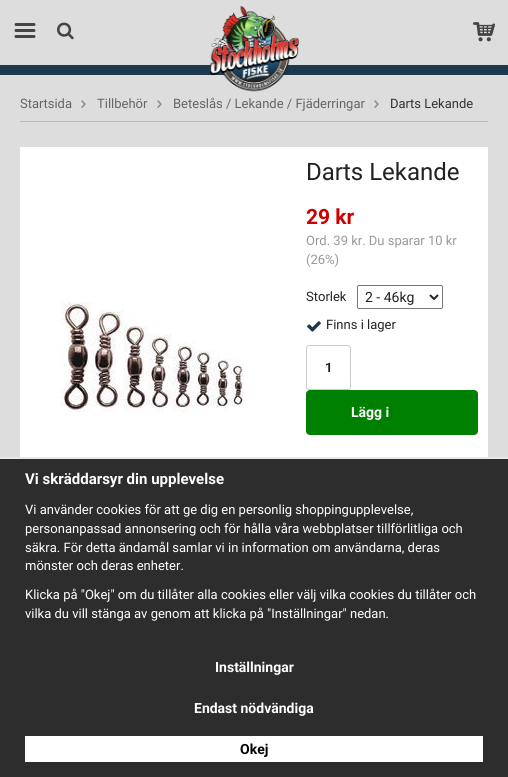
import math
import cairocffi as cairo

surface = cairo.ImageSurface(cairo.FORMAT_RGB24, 508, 777)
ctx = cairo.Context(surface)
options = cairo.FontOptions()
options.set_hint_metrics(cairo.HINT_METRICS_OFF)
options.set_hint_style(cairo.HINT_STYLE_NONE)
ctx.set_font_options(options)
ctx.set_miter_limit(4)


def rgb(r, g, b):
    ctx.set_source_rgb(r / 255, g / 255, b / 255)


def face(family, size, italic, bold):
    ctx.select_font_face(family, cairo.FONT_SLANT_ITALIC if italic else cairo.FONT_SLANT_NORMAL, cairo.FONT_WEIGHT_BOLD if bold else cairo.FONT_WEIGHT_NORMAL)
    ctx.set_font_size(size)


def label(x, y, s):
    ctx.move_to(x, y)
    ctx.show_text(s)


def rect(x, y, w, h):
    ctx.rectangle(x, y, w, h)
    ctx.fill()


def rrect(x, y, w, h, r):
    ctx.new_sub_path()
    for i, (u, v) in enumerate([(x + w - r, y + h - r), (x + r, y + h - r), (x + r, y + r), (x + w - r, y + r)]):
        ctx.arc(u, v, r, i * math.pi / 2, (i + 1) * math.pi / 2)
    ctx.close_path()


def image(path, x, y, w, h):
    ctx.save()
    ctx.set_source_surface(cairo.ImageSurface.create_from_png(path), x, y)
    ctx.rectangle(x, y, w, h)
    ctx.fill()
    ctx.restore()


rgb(221, 221, 221)
ctx.paint()
rgb(29, 56, 77)
rect(0, 65, 508, 10)
image('image0.png', 14, 23, 22, 15)
image('image1.png', 57, 22, 17, 18)
image('image2.png', 209, 6, 91, 86)
image('image3.png', 473, 22, 22, 20)
rgb(187, 187, 187)
rect(20, 121, 468, 1)
face('Roboto', 13, 0, 0)
rgb(102, 102, 102)
label(20, 108, 'Startsida')
image('image4.png', 81, 100, 5, 8)
label(97, 108, 'Tillbehör')
image('image4.png', 157, 100, 5, 8)
label(173, 108, 'Beteslås / Lekande / Fjäderringar')
image('image4.png', 374, 100, 5, 8)
rgb(51, 51, 51)
label(390, 108, 'Darts Lekande')
rgb(255, 255, 255)
rect(20, 147, 468, 310)
image('image5.png', 60, 302, 184, 110)
face('Roboto', 24, 0, 0)
rgb(34, 34, 34)
label(306, 180, 'Darts Lekande')
face('Roboto', 21, 0, 1)
rgb(204, 0, 0)
label(306, 224, '29 kr')
face('Roboto', 13, 0, 0)
rgb(153, 153, 153)
label(306, 245, 'Ord. 39 kr. Du sparar 10 kr')
label(306, 264, '(26%)')
rgb(34, 34, 34)
label(306, 301, 'Storlek')
rrect(357.5, 285.5, 85, 23, 1.5)
rgb(118, 118, 118)
ctx.set_line_width(1)
ctx.stroke()
ctx.new_path()
ctx.move_to(430, 295)
ctx.line_to(434, 299)
ctx.line_to(438, 295)
rgb(34, 34, 34)
ctx.set_line_width(2)
ctx.stroke()
face('Roboto', 14, 0, 0)
label(365, 302, '2 - 46kg')
image('image6.png', 307, 321, 14, 11)
face('Roboto', 13, 0, 0)
label(326, 329, 'Finns i lager')
rrect(306.5, 345.5, 44, 44, 2.5)
rgb(204, 204, 204)
ctx.set_line_width(1)
ctx.stroke()
face('Roboto', 13, 0, 1)
rgb(34, 34, 34)
label(325, 372, '1')
rgb(0, 128, 0)
rrect(306, 390, 172, 45, 4)
ctx.fill()
face('Roboto', 14, 0, 1)
rgb(255, 255, 255)
label(351, 417, 'Lägg i')
rgb(45, 45, 45)
rect(0, 459, 508, 318)
rgb(233, 233, 233)
rect(0, 457, 508, 2)
face('Roboto', 15, 0, 1)
rgb(255, 255, 255)
label(25, 484, 'Vi skräddarsyr din upplevelse')
face('Roboto', 13, 0, 0)
label(25, 514, 'Vi använder cookies för att ge dig en personlig shoppingupplevelse,')
label(25, 533, 'personanpassad annonsering och för hålla våra webbplatser tillförlitliga och')
label(25, 552, 'säkra. För detta ändamål samlar vi in information om användarna, deras')
label(25, 570, 'mönster och deras enheter.')
label(25, 599, 'Klicka på "Okej" om du tillåter alla cookies eller välj vilka cookies du tillåter och')
label(25, 618, 'vilka du vill stänga av genom att klicka på "Inställningar" nedan.')
face('Roboto', 14, 0, 1)
label(215, 672, 'Inställningar')
label(194, 713, 'Endast nödvändiga')
rect(25, 736, 458, 26)
rgb(0, 0, 0)
label(240, 754, 'Okej')
surface.write_to_png('render.png')
